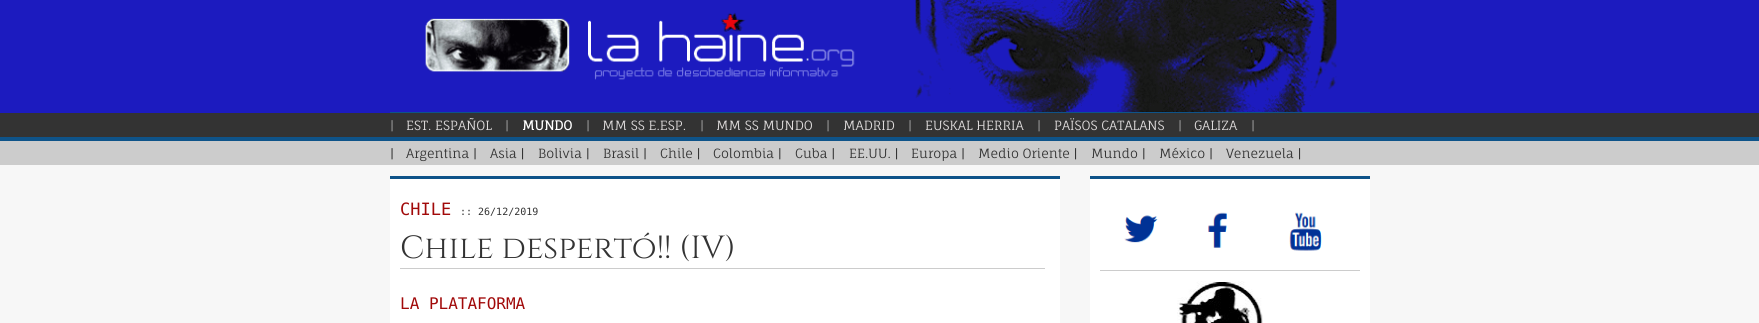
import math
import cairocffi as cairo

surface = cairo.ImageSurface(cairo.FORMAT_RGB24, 1759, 323)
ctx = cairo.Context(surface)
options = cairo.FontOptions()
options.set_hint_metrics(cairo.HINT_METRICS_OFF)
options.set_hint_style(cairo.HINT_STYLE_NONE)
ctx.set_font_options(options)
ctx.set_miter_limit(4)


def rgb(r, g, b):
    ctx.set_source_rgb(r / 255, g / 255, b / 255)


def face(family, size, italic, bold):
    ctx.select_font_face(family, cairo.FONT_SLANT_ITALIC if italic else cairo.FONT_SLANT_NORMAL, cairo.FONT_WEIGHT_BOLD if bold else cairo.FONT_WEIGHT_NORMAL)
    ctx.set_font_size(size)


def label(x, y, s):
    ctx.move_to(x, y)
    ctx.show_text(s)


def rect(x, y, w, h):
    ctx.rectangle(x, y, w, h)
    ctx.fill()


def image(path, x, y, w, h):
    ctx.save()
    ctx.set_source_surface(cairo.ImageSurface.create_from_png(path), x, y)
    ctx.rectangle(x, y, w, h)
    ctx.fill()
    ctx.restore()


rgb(247, 247, 247)
ctx.paint()
rgb(28, 27, 191)
rect(0, 0, 1759, 113)
rgb(14, 83, 137)
rect(390, 112, 980, 1)
image('image0.png', 390, 0, 980, 112)
rgb(51, 51, 51)
rect(0, 113, 1759, 24)
face('Fauna One', 12.75, 0, 0)
rgb(153, 153, 153)
label(390, 130, '|')
rgb(224, 221, 221)
label(406, 130, 'EST. ESPAÑOL')
rgb(153, 153, 153)
label(505, 130, '|')
face('Fauna One', 12.75, 0, 1)
rgb(255, 255, 255)
label(522, 130, 'MUNDO')
face('Fauna One', 12.75, 0, 0)
rgb(153, 153, 153)
label(586, 130, '|')
rgb(224, 221, 221)
label(602, 130, 'MM SS E.ESP.')
rgb(153, 153, 153)
label(700, 130, '|')
rgb(224, 221, 221)
label(716, 130, 'MM SS MUNDO')
rgb(153, 153, 153)
label(826, 130, '|')
rgb(224, 221, 221)
label(843, 130, 'MADRID')
rgb(153, 153, 153)
label(908, 130, '|')
rgb(224, 221, 221)
label(925, 130, 'EUSKAL HERRIA')
rgb(153, 153, 153)
label(1037, 130, '|')
rgb(224, 221, 221)
label(1054, 130, 'PAÏSOS CATALANS')
rgb(153, 153, 153)
label(1178, 130, '|')
rgb(224, 221, 221)
label(1194, 130, 'GALIZA')
rgb(153, 153, 153)
label(1251, 130, '|')
rgb(204, 204, 204)
rect(0, 141, 1759, 24)
rgb(14, 83, 137)
rect(0, 137, 1759, 4)
rgb(51, 51, 51)
label(390, 158, '|')
label(406, 158, 'Argentina |')
label(490, 158, 'Asia |')
label(538, 158, 'Bolivia |')
label(603, 158, 'Brasil |')
label(660, 158, 'Chile |')
label(713, 158, 'Colombia |')
label(795, 158, 'Cuba |')
label(849, 158, 'EE.UU. |')
label(911, 158, 'Europa |')
label(978, 158, 'Medio Oriente |')
label(1091, 158, 'Mundo |')
label(1159, 158, 'México |')
label(1226, 158, 'Venezuela |')
rgb(255, 255, 255)
rect(390, 179, 670, 144)
rgb(14, 83, 137)
rect(390, 176, 670, 3)
face('DejaVu Sans Mono', 17, 0, 0)
rgb(161, 9, 9)
label(400, 215, 'CHILE')
face('DejaVu Sans Mono', 10, 0, 0)
rgb(51, 51, 51)
label(460, 215, ':: 26/12/2019')
rgb(204, 204, 204)
rect(400, 268, 645, 1)
face('Cinzel', 32, 0, 0)
rgb(51, 51, 51)
label(400, 258, 'Chile despertó!! (IV)')
face('DejaVu Sans Mono', 16, 0, 0)
rgb(161, 9, 9)
label(400, 309, 'LA PLATAFORMA')
rgb(255, 255, 255)
rect(1090, 179, 280, 144)
rgb(14, 83, 137)
rect(1090, 176, 280, 3)
rgb(204, 204, 204)
rect(1100, 270, 260, 1)
image('image1.png', 1124, 215, 34, 28)
image('image2.png', 1208, 212, 19, 36)
image('image3.png', 1289, 212, 33, 39)
image('image4.png', 1177, 281, 86, 42)
surface.write_to_png('render.png')
